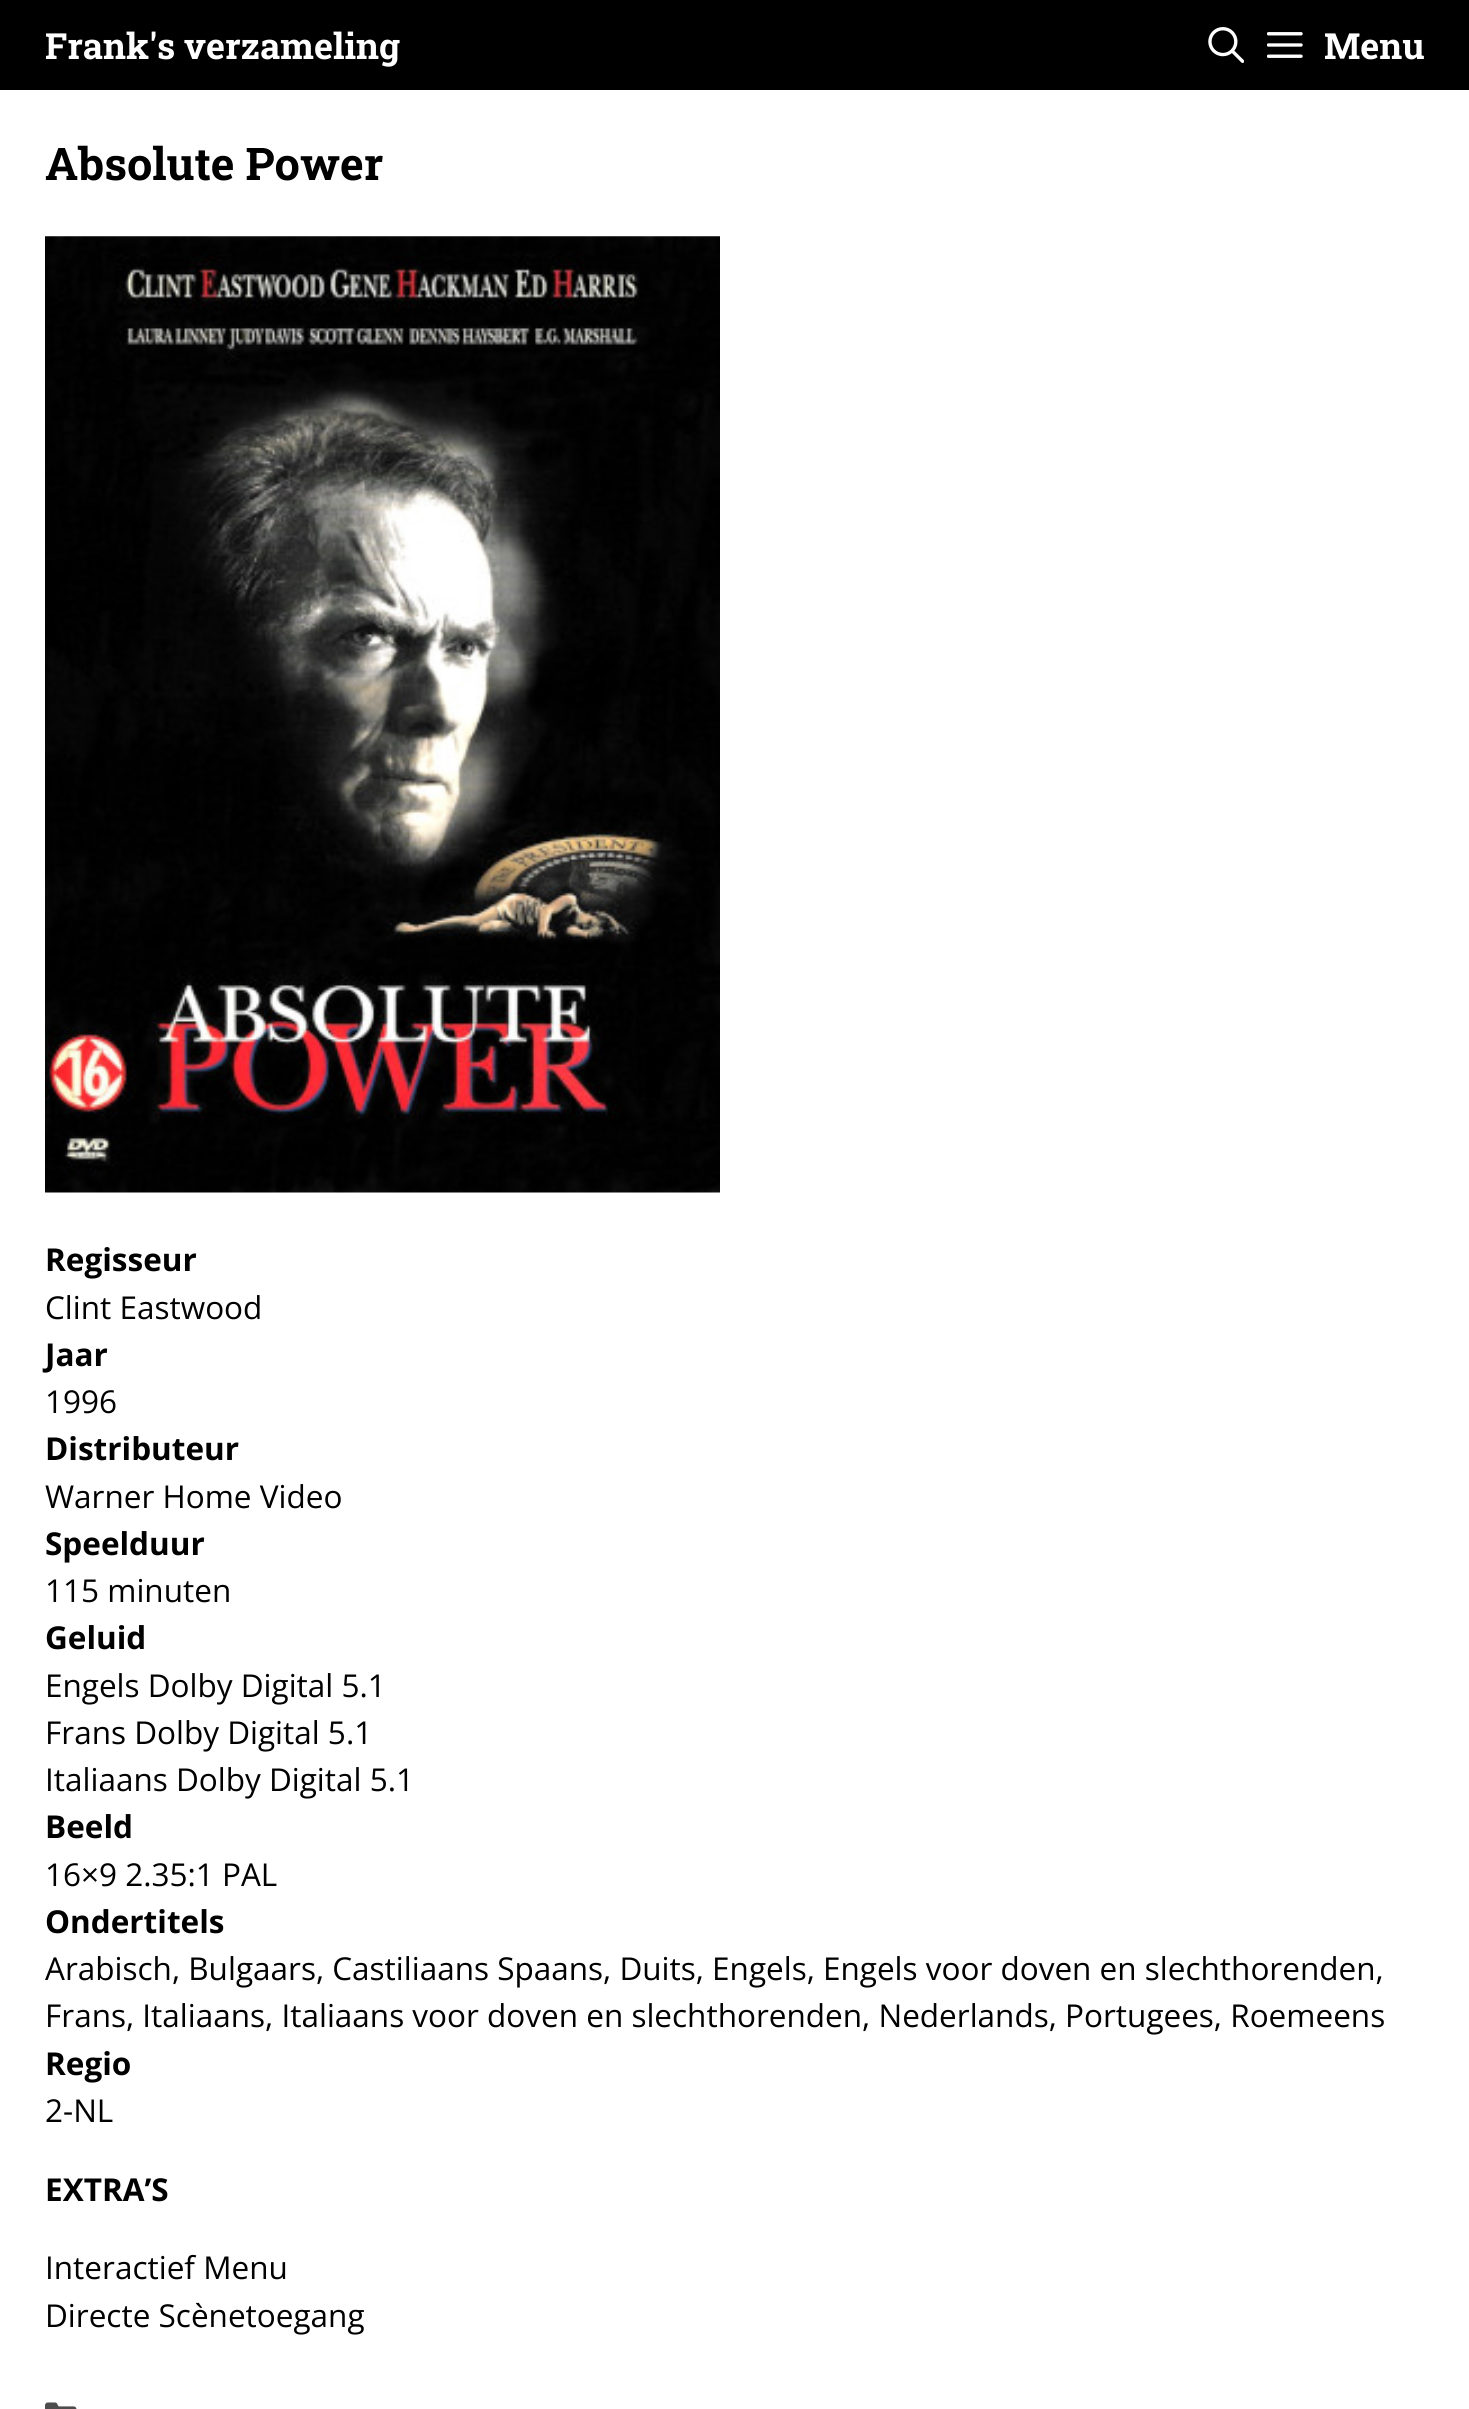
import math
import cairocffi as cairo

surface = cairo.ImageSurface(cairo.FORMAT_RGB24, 1469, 2409)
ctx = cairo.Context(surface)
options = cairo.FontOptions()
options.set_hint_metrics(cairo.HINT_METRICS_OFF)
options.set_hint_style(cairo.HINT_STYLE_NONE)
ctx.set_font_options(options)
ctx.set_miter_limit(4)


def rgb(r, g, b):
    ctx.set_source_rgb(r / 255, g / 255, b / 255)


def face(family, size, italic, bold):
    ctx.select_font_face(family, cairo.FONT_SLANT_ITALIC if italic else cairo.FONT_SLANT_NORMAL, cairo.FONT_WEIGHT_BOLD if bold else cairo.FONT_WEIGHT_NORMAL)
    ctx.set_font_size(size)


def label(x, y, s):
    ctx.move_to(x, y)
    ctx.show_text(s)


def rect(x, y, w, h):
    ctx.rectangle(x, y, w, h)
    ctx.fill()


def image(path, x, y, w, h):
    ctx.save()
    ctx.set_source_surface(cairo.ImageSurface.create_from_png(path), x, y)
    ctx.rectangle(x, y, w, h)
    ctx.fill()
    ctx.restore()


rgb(0, 0, 0)
ctx.paint()
face('Roboto Slab', 36, 0, 1)
rgb(255, 255, 255)
label(45, 59, 'Frank\'s verzameling')
image('image0.png', 1208, 27, 36, 36)
image('image1.png', 1267, 32, 36, 26)
label(1324, 59, 'Menu')
rect(0, 90, 1469, 2319)
face('Roboto Slab', 45, 0, 1)
rgb(0, 0, 0)
label(45, 180, 'Absolute Power')
image('image2.png', 45, 236, 675, 957)
face('Open Sans', 31.5, 0, 1)
label(45, 1271, 'Regisseur')
face('Open Sans', 31.5, 0, 0)
label(45, 1319, 'Clint Eastwood')
face('Open Sans', 31.5, 0, 1)
label(45, 1366, 'Jaar')
face('Open Sans', 31.5, 0, 0)
label(45, 1413, '1996')
face('Open Sans', 31.5, 0, 1)
label(45, 1460, 'Distributeur')
face('Open Sans', 31.5, 0, 0)
label(45, 1508, 'Warner Home Video')
face('Open Sans', 31.5, 0, 1)
label(45, 1555, 'Speelduur')
face('Open Sans', 31.5, 0, 0)
label(45, 1602, '115 minuten')
face('Open Sans', 31.5, 0, 1)
label(45, 1649, 'Geluid')
face('Open Sans', 31.5, 0, 0)
label(45, 1697, 'Engels Dolby Digital 5.1')
label(45, 1744, 'Frans Dolby Digital 5.1')
label(45, 1791, 'Italiaans Dolby Digital 5.1')
face('Open Sans', 31.5, 0, 1)
label(45, 1838, 'Beeld')
face('Open Sans', 31.5, 0, 0)
label(45, 1886, '16×9 2.35:1 PAL')
face('Open Sans', 31.5, 0, 1)
label(45, 1933, 'Ondertitels')
face('Open Sans', 31.5, 0, 0)
label(45, 1980, 'Arabisch, Bulgaars, Castiliaans Spaans, Duits, Engels, Engels voor doven en slechthorenden,')
label(45, 2027, 'Frans, Italiaans, Italiaans voor doven en slechthorenden, Nederlands, Portugees, Roemeens')
face('Open Sans', 31.5, 0, 1)
label(45, 2075, 'Regio')
face('Open Sans', 31.5, 0, 0)
label(45, 2122, '2-NL')
face('Open Sans', 31.5, 0, 1)
label(45, 2201, 'EXTRA’S')
face('Open Sans', 31.5, 0, 0)
label(45, 2279, 'Interactief Menu')
label(45, 2327, 'Directe Scènetoegang')
image('image3.png', 45, 2402, 32, 7)
surface.write_to_png('render.png')
